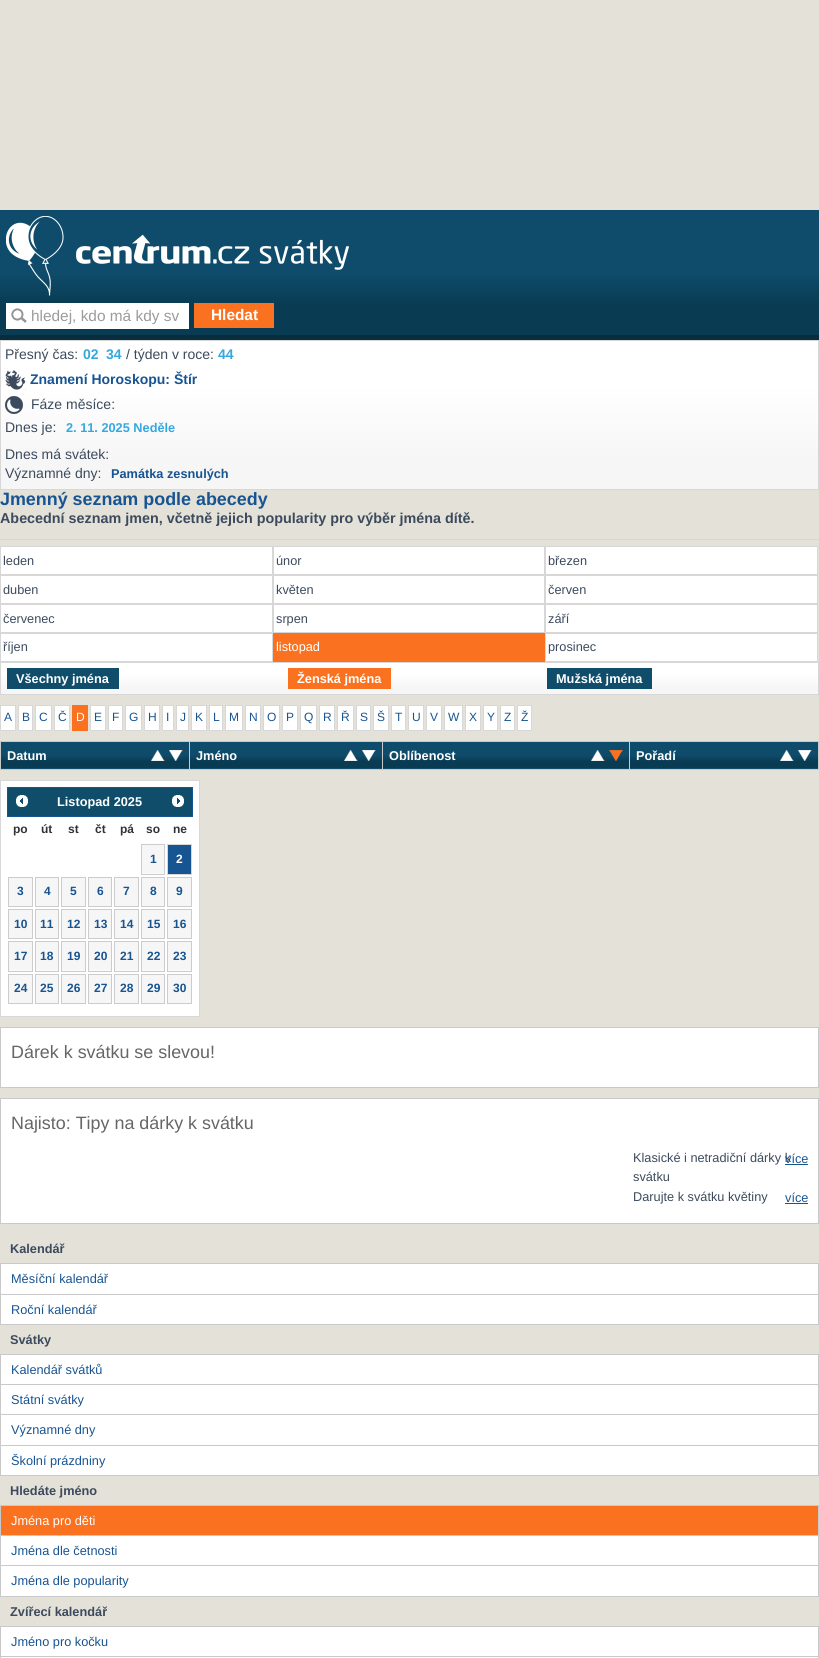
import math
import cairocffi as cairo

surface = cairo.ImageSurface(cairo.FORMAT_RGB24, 819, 1658)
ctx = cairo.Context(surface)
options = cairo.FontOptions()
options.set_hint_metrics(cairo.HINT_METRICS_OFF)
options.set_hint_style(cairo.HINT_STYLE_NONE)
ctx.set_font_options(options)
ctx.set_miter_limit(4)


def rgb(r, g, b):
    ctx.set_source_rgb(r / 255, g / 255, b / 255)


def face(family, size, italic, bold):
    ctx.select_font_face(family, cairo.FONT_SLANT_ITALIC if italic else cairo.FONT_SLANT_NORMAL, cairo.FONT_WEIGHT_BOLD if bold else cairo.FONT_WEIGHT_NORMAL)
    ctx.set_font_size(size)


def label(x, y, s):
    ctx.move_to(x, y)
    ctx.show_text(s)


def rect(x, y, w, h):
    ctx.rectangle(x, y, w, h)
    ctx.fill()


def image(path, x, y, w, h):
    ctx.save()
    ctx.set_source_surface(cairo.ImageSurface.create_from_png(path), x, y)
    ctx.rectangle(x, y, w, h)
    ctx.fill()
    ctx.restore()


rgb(228, 225, 216)
ctx.paint()
gradient = cairo.LinearGradient(0, 335, 0, 210)
gradient.add_color_stop_rgba(0.25, 0.035, 0.235, 0.325, 1)
gradient.add_color_stop_rgba(0.5, 0.059, 0.298, 0.42, 1)
ctx.set_source(gradient)
rect(0, 210, 819, 125)
rgb(7, 45, 62)
rect(0, 335, 819, 5)
image('image0.png', 6, 216, 343, 80)
rgb(255, 255, 255)
rect(6, 303, 183, 26)
image('image1.png', 11, 308, 16, 15)
face('Liberation Sans', 15.4, 0, 0)
rgb(155, 155, 155)
label(31, 321, 'hledej, kdo má kdy sv')
rgb(250, 114, 31)
rect(194, 303, 80, 25)
face('Liberation Sans', 15.4, 0, 1)
rgb(255, 255, 255)
label(211, 320, 'Hledat')
gradient = cairo.LinearGradient(1, 489, 1, 341)
gradient.add_color_stop_rgba(0.2, 0.965, 0.965, 0.965, 1)
gradient.add_color_stop_rgba(0.7, 1, 1, 1, 1)
ctx.set_source(gradient)
rect(1, 341, 817, 148)
ctx.rectangle(0.5, 340.5, 818, 149)
rgb(215, 215, 215)
ctx.set_line_width(1)
ctx.stroke()
face('Liberation Sans', 14, 0, 0)
rgb(60, 74, 93)
label(5, 359, 'Přesný čas:')
face('Liberation Sans', 14, 0, 1)
rgb(53, 168, 224)
label(83, 359, '02')
label(106, 359, '34')
face('Liberation Sans', 14, 0, 0)
rgb(60, 74, 93)
label(126, 359, '/ týden v roce:')
face('Liberation Sans', 14, 0, 1)
rgb(53, 168, 224)
label(218, 359, '44')
image('image2.png', 5, 370, 21, 20)
rgb(23, 84, 146)
label(30, 384, 'Znamení Horoskopu: Štír')
image('image3.png', 5, 396, 18, 18)
face('Liberation Sans', 14, 0, 0)
rgb(60, 74, 93)
label(31, 409, 'Fáze měsíce:')
label(5, 432, 'Dnes je:')
face('Liberation Sans', 12.75, 0, 1)
rgb(53, 168, 224)
label(66, 432, '2. 11. 2025 Neděle')
face('Liberation Sans', 14, 0, 0)
rgb(60, 74, 93)
label(5, 459, 'Dnes má svátek:')
label(5, 478, 'Významné dny:')
face('Liberation Sans', 12.75, 0, 1)
rgb(23, 84, 146)
label(111, 478, 'Památka zesnulých')
face('Liberation Sans', 17.9, 0, 1)
label(0, 505, 'Jmenný seznam podle abecedy')
face('Liberation Sans', 14.35, 0, 1)
rgb(60, 74, 93)
label(0, 523, 'Abecední seznam jmen, včetně jejich popularity pro výběr jména dítě.')
rgb(215, 215, 215)
rect(0, 539, 819, 1)
rgb(255, 255, 255)
ctx.rectangle(0.5, 546.5, 272, 28)
ctx.fill_preserve()
rgb(215, 215, 215)
ctx.stroke()
face('Liberation Sans', 12.75, 0, 0)
rgb(60, 74, 93)
label(3, 565, 'leden')
rgb(255, 255, 255)
ctx.rectangle(273.5, 546.5, 271, 28)
ctx.fill_preserve()
rgb(215, 215, 215)
ctx.stroke()
rgb(60, 74, 93)
label(276, 565, 'únor')
rgb(255, 255, 255)
ctx.rectangle(545.5, 546.5, 272, 28)
ctx.fill_preserve()
rgb(215, 215, 215)
ctx.stroke()
rgb(60, 74, 93)
label(548, 565, 'březen')
rgb(255, 255, 255)
ctx.rectangle(0.5, 575.5, 272, 28)
ctx.fill_preserve()
rgb(215, 215, 215)
ctx.stroke()
rgb(60, 74, 93)
label(3, 594, 'duben')
rgb(255, 255, 255)
ctx.rectangle(273.5, 575.5, 271, 28)
ctx.fill_preserve()
rgb(215, 215, 215)
ctx.stroke()
rgb(60, 74, 93)
label(276, 594, 'květen')
rgb(255, 255, 255)
ctx.rectangle(545.5, 575.5, 272, 28)
ctx.fill_preserve()
rgb(215, 215, 215)
ctx.stroke()
rgb(60, 74, 93)
label(548, 594, 'červen')
rgb(255, 255, 255)
ctx.rectangle(0.5, 604.5, 272, 28)
ctx.fill_preserve()
rgb(215, 215, 215)
ctx.stroke()
rgb(60, 74, 93)
label(3, 623, 'červenec')
rgb(255, 255, 255)
ctx.rectangle(273.5, 604.5, 271, 28)
ctx.fill_preserve()
rgb(215, 215, 215)
ctx.stroke()
rgb(60, 74, 93)
label(276, 623, 'srpen')
rgb(255, 255, 255)
ctx.rectangle(545.5, 604.5, 272, 28)
ctx.fill_preserve()
rgb(215, 215, 215)
ctx.stroke()
rgb(60, 74, 93)
label(548, 623, 'září')
rgb(255, 255, 255)
ctx.rectangle(0.5, 633.5, 272, 28)
ctx.fill_preserve()
rgb(215, 215, 215)
ctx.stroke()
rgb(60, 74, 93)
label(3, 651, 'říjen')
rgb(250, 114, 31)
rect(273, 633, 272, 29)
rgb(255, 255, 255)
label(276, 651, 'listopad')
ctx.rectangle(545.5, 633.5, 272, 28)
ctx.fill_preserve()
rgb(215, 215, 215)
ctx.stroke()
rgb(60, 74, 93)
label(548, 651, 'prosinec')
gradient = cairo.LinearGradient(1, 694, 1, 663)
gradient.add_color_stop_rgba(0.2, 0.965, 0.965, 0.965, 1)
gradient.add_color_stop_rgba(0.7, 1, 1, 1, 1)
ctx.set_source(gradient)
rect(1, 663, 817, 31)
ctx.rectangle(0.5, 662.5, 818, 32)
rgb(215, 215, 215)
ctx.stroke()
rgb(15, 77, 107)
rect(7, 668, 112, 21)
face('Liberation Sans', 12.75, 0, 1)
rgb(255, 255, 255)
label(16, 683, 'Všechny jména')
rgb(250, 114, 31)
rect(288, 668, 103, 21)
rgb(255, 255, 255)
label(297, 683, 'Ženská jména')
rgb(15, 77, 107)
rect(547, 668, 105, 21)
rgb(255, 255, 255)
label(556, 683, 'Mužská jména')
ctx.rectangle(0.5, 705.5, 15, 25)
ctx.fill_preserve()
rgb(215, 215, 215)
ctx.stroke()
face('Liberation Sans', 12, 0, 0)
rgb(23, 84, 146)
label(4, 721, 'A')
rgb(255, 255, 255)
ctx.rectangle(18.5, 705.5, 14, 25)
ctx.fill_preserve()
rgb(215, 215, 215)
ctx.stroke()
rgb(23, 84, 146)
label(22, 721, 'B')
rgb(255, 255, 255)
ctx.rectangle(35.5, 705.5, 16, 25)
ctx.fill_preserve()
rgb(215, 215, 215)
ctx.stroke()
rgb(23, 84, 146)
label(39, 721, 'C')
rgb(255, 255, 255)
ctx.rectangle(54.5, 705.5, 15, 25)
ctx.fill_preserve()
rgb(215, 215, 215)
ctx.stroke()
rgb(23, 84, 146)
label(58, 721, 'Č')
rgb(250, 114, 31)
rect(72, 705, 16, 26)
rgb(255, 255, 255)
label(76, 721, 'D')
ctx.rectangle(90.5, 705.5, 15, 25)
ctx.fill_preserve()
rgb(215, 215, 215)
ctx.stroke()
rgb(23, 84, 146)
label(94, 721, 'E')
rgb(255, 255, 255)
ctx.rectangle(108.5, 705.5, 14, 25)
ctx.fill_preserve()
rgb(215, 215, 215)
ctx.stroke()
rgb(23, 84, 146)
label(112, 721, 'F')
rgb(255, 255, 255)
ctx.rectangle(125.5, 705.5, 16, 25)
ctx.fill_preserve()
rgb(215, 215, 215)
ctx.stroke()
rgb(23, 84, 146)
label(129, 721, 'G')
rgb(255, 255, 255)
ctx.rectangle(144.5, 705.5, 15, 25)
ctx.fill_preserve()
rgb(215, 215, 215)
ctx.stroke()
rgb(23, 84, 146)
label(148, 721, 'H')
rgb(255, 255, 255)
ctx.rectangle(162.5, 705.5, 11, 25)
ctx.fill_preserve()
rgb(215, 215, 215)
ctx.stroke()
rgb(23, 84, 146)
label(166, 721, 'I')
rgb(255, 255, 255)
ctx.rectangle(176.5, 705.5, 12, 25)
ctx.fill_preserve()
rgb(215, 215, 215)
ctx.stroke()
rgb(23, 84, 146)
label(180, 721, 'J')
rgb(255, 255, 255)
ctx.rectangle(191.5, 705.5, 15, 25)
ctx.fill_preserve()
rgb(215, 215, 215)
ctx.stroke()
rgb(23, 84, 146)
label(195, 721, 'K')
rgb(255, 255, 255)
ctx.rectangle(209.5, 705.5, 13, 25)
ctx.fill_preserve()
rgb(215, 215, 215)
ctx.stroke()
rgb(23, 84, 146)
label(213, 721, 'L')
rgb(255, 255, 255)
ctx.rectangle(225.5, 705.5, 17, 25)
ctx.fill_preserve()
rgb(215, 215, 215)
ctx.stroke()
rgb(23, 84, 146)
label(229, 721, 'M')
rgb(255, 255, 255)
ctx.rectangle(245.5, 705.5, 15, 25)
ctx.fill_preserve()
rgb(215, 215, 215)
ctx.stroke()
rgb(23, 84, 146)
label(249, 721, 'N')
rgb(255, 255, 255)
ctx.rectangle(263.5, 705.5, 16, 25)
ctx.fill_preserve()
rgb(215, 215, 215)
ctx.stroke()
rgb(23, 84, 146)
label(267, 721, 'O')
rgb(255, 255, 255)
ctx.rectangle(282.5, 705.5, 15, 25)
ctx.fill_preserve()
rgb(215, 215, 215)
ctx.stroke()
rgb(23, 84, 146)
label(286, 721, 'P')
rgb(255, 255, 255)
ctx.rectangle(300.5, 705.5, 16, 25)
ctx.fill_preserve()
rgb(215, 215, 215)
ctx.stroke()
rgb(23, 84, 146)
label(304, 721, 'Q')
rgb(255, 255, 255)
ctx.rectangle(319.5, 705.5, 15, 25)
ctx.fill_preserve()
rgb(215, 215, 215)
ctx.stroke()
rgb(23, 84, 146)
label(323, 721, 'R')
rgb(255, 255, 255)
ctx.rectangle(337.5, 705.5, 16, 25)
ctx.fill_preserve()
rgb(215, 215, 215)
ctx.stroke()
rgb(23, 84, 146)
label(341, 721, 'Ř')
rgb(255, 255, 255)
ctx.rectangle(356.5, 705.5, 14, 25)
ctx.fill_preserve()
rgb(215, 215, 215)
ctx.stroke()
rgb(23, 84, 146)
label(360, 721, 'S')
rgb(255, 255, 255)
ctx.rectangle(373.5, 705.5, 15, 25)
ctx.fill_preserve()
rgb(215, 215, 215)
ctx.stroke()
rgb(23, 84, 146)
label(377, 721, 'Š')
rgb(255, 255, 255)
ctx.rectangle(391.5, 705.5, 14, 25)
ctx.fill_preserve()
rgb(215, 215, 215)
ctx.stroke()
rgb(23, 84, 146)
label(395, 721, 'T')
rgb(255, 255, 255)
ctx.rectangle(408.5, 705.5, 15, 25)
ctx.fill_preserve()
rgb(215, 215, 215)
ctx.stroke()
rgb(23, 84, 146)
label(412, 721, 'U')
rgb(255, 255, 255)
ctx.rectangle(426.5, 705.5, 15, 25)
ctx.fill_preserve()
rgb(215, 215, 215)
ctx.stroke()
rgb(23, 84, 146)
label(430, 721, 'V')
rgb(255, 255, 255)
ctx.rectangle(444.5, 705.5, 18, 25)
ctx.fill_preserve()
rgb(215, 215, 215)
ctx.stroke()
rgb(23, 84, 146)
label(448, 721, 'W')
rgb(255, 255, 255)
ctx.rectangle(465.5, 705.5, 15, 25)
ctx.fill_preserve()
rgb(215, 215, 215)
ctx.stroke()
rgb(23, 84, 146)
label(469, 721, 'X')
rgb(255, 255, 255)
ctx.rectangle(483.5, 705.5, 14, 25)
ctx.fill_preserve()
rgb(215, 215, 215)
ctx.stroke()
rgb(23, 84, 146)
label(487, 721, 'Y')
rgb(255, 255, 255)
ctx.rectangle(500.5, 705.5, 14, 25)
ctx.fill_preserve()
rgb(215, 215, 215)
ctx.stroke()
rgb(23, 84, 146)
label(504, 721, 'Z')
rgb(255, 255, 255)
ctx.rectangle(517.5, 705.5, 14, 25)
ctx.fill_preserve()
rgb(215, 215, 215)
ctx.stroke()
rgb(23, 84, 146)
label(521, 721, 'Ž')
rgb(15, 77, 107)
rect(1, 768, 188, 1)
gradient = cairo.LinearGradient(2, 768, 2, 742)
gradient.add_color_stop_rgba(0.25, 0.035, 0.235, 0.325, 1)
gradient.add_color_stop_rgba(0.5, 0.059, 0.298, 0.42, 1)
ctx.set_source(gradient)
rect(1, 742, 188, 26)
rgb(201, 201, 201)
rect(629, 741, 190, 1)
rect(818, 741, 1, 29)
rect(629, 769, 190, 1)
rect(629, 741, 1, 29)
rect(382, 741, 248, 1)
rect(382, 769, 248, 1)
rect(382, 741, 1, 29)
rect(189, 741, 194, 1)
rect(189, 769, 194, 1)
rect(189, 741, 1, 29)
rect(0, 741, 190, 1)
rect(0, 769, 190, 1)
rect(0, 741, 1, 29)
face('Liberation Sans', 12.75, 0, 1)
rgb(255, 255, 255)
label(7, 760, 'Datum')
image('image4.png', 151, 750, 14, 11)
image('image5.png', 169, 750, 14, 11)
rgb(15, 77, 107)
rect(190, 768, 192, 1)
gradient = cairo.LinearGradient(191, 768, 191, 742)
gradient.add_color_stop_rgba(0.25, 0.035, 0.235, 0.325, 1)
gradient.add_color_stop_rgba(0.5, 0.059, 0.298, 0.42, 1)
ctx.set_source(gradient)
rect(190, 742, 192, 26)
rgb(255, 255, 255)
label(196, 760, 'Jméno')
image('image4.png', 344, 750, 14, 11)
image('image5.png', 362, 750, 14, 11)
rgb(15, 77, 107)
rect(383, 768, 246, 1)
gradient = cairo.LinearGradient(383, 768, 383, 742)
gradient.add_color_stop_rgba(0.25, 0.035, 0.235, 0.325, 1)
gradient.add_color_stop_rgba(0.5, 0.059, 0.298, 0.42, 1)
ctx.set_source(gradient)
rect(383, 742, 246, 26)
rgb(255, 255, 255)
label(389, 760, 'Oblíbenost')
image('image4.png', 591, 750, 14, 11)
image('image6.png', 609, 750, 14, 11)
rgb(15, 77, 107)
rect(630, 768, 188, 1)
gradient = cairo.LinearGradient(630, 768, 630, 742)
gradient.add_color_stop_rgba(0.25, 0.035, 0.235, 0.325, 1)
gradient.add_color_stop_rgba(0.5, 0.059, 0.298, 0.42, 1)
ctx.set_source(gradient)
rect(630, 742, 188, 26)
rgb(255, 255, 255)
label(636, 760, 'Pořadí')
image('image4.png', 780, 750, 14, 11)
image('image5.png', 798, 750, 14, 11)
ctx.rectangle(0.5, 780.5, 199, 236)
ctx.fill_preserve()
rgb(215, 215, 215)
ctx.stroke()
rgb(15, 77, 107)
ctx.rectangle(7.5, 787.5, 185, 29)
ctx.fill_preserve()
rgb(23, 84, 146)
ctx.stroke()
image('image7.png', 16, 795, 12, 12)
rgb(255, 255, 255)
label(57, 806, 'Listopad 2025')
image('image8.png', 172, 795, 12, 12)
face('Liberation Sans', 12, 0, 1)
rgb(51, 51, 51)
label(13, 833, 'po')
label(41, 833, 'út')
label(68, 833, 'st')
label(95, 833, 'čt')
label(120, 833, 'pá')
label(146, 833, 'so')
label(173, 833, 'ne')
rgb(246, 246, 246)
rect(142, 845, 22, 28)
rgb(251, 251, 251)
rect(141, 873, 24, 1)
ctx.rectangle(141.5, 844.5, 23, 30)
rgb(204, 204, 204)
ctx.stroke()
rgb(23, 84, 146)
label(150, 863, '1')
ctx.rectangle(167.5, 844.5, 24, 30)
ctx.fill_preserve()
rgb(215, 215, 215)
ctx.stroke()
rgb(255, 255, 255)
label(176, 863, '2')
rgb(246, 246, 246)
ctx.rectangle(8.5, 877.5, 24, 29)
ctx.fill_preserve()
rgb(204, 204, 204)
ctx.stroke()
rgb(23, 84, 146)
label(17, 895, '3')
rgb(246, 246, 246)
ctx.rectangle(35.5, 877.5, 23, 29)
ctx.fill_preserve()
rgb(204, 204, 204)
ctx.stroke()
rgb(23, 84, 146)
label(44, 895, '4')
rgb(246, 246, 246)
ctx.rectangle(61.5, 877.5, 24, 29)
ctx.fill_preserve()
rgb(204, 204, 204)
ctx.stroke()
rgb(23, 84, 146)
label(70, 895, '5')
rgb(246, 246, 246)
ctx.rectangle(88.5, 877.5, 23, 29)
ctx.fill_preserve()
rgb(204, 204, 204)
ctx.stroke()
rgb(23, 84, 146)
label(97, 895, '6')
rgb(246, 246, 246)
ctx.rectangle(114.5, 877.5, 24, 29)
ctx.fill_preserve()
rgb(204, 204, 204)
ctx.stroke()
rgb(23, 84, 146)
label(123, 895, '7')
rgb(246, 246, 246)
ctx.rectangle(141.5, 877.5, 23, 29)
ctx.fill_preserve()
rgb(204, 204, 204)
ctx.stroke()
rgb(23, 84, 146)
label(150, 895, '8')
rgb(246, 246, 246)
ctx.rectangle(167.5, 877.5, 24, 29)
ctx.fill_preserve()
rgb(204, 204, 204)
ctx.stroke()
rgb(23, 84, 146)
label(176, 895, '9')
rgb(246, 246, 246)
ctx.rectangle(8.5, 909.5, 24, 29)
ctx.fill_preserve()
rgb(204, 204, 204)
ctx.stroke()
rgb(23, 84, 146)
label(14, 928, '10')
rgb(246, 246, 246)
ctx.rectangle(35.5, 909.5, 23, 29)
ctx.fill_preserve()
rgb(204, 204, 204)
ctx.stroke()
rgb(23, 84, 146)
label(40, 928, '11')
rgb(246, 246, 246)
ctx.rectangle(61.5, 909.5, 24, 29)
ctx.fill_preserve()
rgb(204, 204, 204)
ctx.stroke()
rgb(23, 84, 146)
label(67, 928, '12')
rgb(246, 246, 246)
ctx.rectangle(88.5, 909.5, 23, 29)
ctx.fill_preserve()
rgb(204, 204, 204)
ctx.stroke()
rgb(23, 84, 146)
label(94, 928, '13')
rgb(246, 246, 246)
ctx.rectangle(114.5, 909.5, 24, 29)
ctx.fill_preserve()
rgb(204, 204, 204)
ctx.stroke()
rgb(23, 84, 146)
label(120, 928, '14')
rgb(246, 246, 246)
ctx.rectangle(141.5, 909.5, 23, 29)
ctx.fill_preserve()
rgb(204, 204, 204)
ctx.stroke()
rgb(23, 84, 146)
label(147, 928, '15')
rgb(246, 246, 246)
ctx.rectangle(167.5, 909.5, 24, 29)
ctx.fill_preserve()
rgb(204, 204, 204)
ctx.stroke()
rgb(23, 84, 146)
label(173, 928, '16')
rgb(246, 246, 246)
rect(9, 942, 23, 28)
rgb(251, 251, 251)
rect(8, 970, 25, 1)
ctx.rectangle(8.5, 941.5, 24, 30)
rgb(204, 204, 204)
ctx.stroke()
rgb(23, 84, 146)
label(14, 960, '17')
rgb(246, 246, 246)
rect(36, 942, 22, 28)
rgb(251, 251, 251)
rect(35, 970, 24, 1)
ctx.rectangle(35.5, 941.5, 23, 30)
rgb(204, 204, 204)
ctx.stroke()
rgb(23, 84, 146)
label(40, 960, '18')
rgb(246, 246, 246)
rect(62, 942, 23, 28)
rgb(251, 251, 251)
rect(61, 970, 25, 1)
ctx.rectangle(61.5, 941.5, 24, 30)
rgb(204, 204, 204)
ctx.stroke()
rgb(23, 84, 146)
label(67, 960, '19')
rgb(246, 246, 246)
rect(89, 942, 22, 28)
rgb(251, 251, 251)
rect(88, 970, 24, 1)
ctx.rectangle(88.5, 941.5, 23, 30)
rgb(204, 204, 204)
ctx.stroke()
rgb(23, 84, 146)
label(94, 960, '20')
rgb(246, 246, 246)
rect(115, 942, 23, 28)
rgb(251, 251, 251)
rect(114, 970, 25, 1)
ctx.rectangle(114.5, 941.5, 24, 30)
rgb(204, 204, 204)
ctx.stroke()
rgb(23, 84, 146)
label(120, 960, '21')
rgb(246, 246, 246)
rect(142, 942, 22, 28)
rgb(251, 251, 251)
rect(141, 970, 24, 1)
ctx.rectangle(141.5, 941.5, 23, 30)
rgb(204, 204, 204)
ctx.stroke()
rgb(23, 84, 146)
label(147, 960, '22')
rgb(246, 246, 246)
rect(168, 942, 23, 28)
rgb(251, 251, 251)
rect(167, 970, 25, 1)
ctx.rectangle(167.5, 941.5, 24, 30)
rgb(204, 204, 204)
ctx.stroke()
rgb(23, 84, 146)
label(173, 960, '23')
rgb(246, 246, 246)
ctx.rectangle(8.5, 974.5, 24, 29)
ctx.fill_preserve()
rgb(204, 204, 204)
ctx.stroke()
rgb(23, 84, 146)
label(14, 992, '24')
rgb(246, 246, 246)
ctx.rectangle(35.5, 974.5, 23, 29)
ctx.fill_preserve()
rgb(204, 204, 204)
ctx.stroke()
rgb(23, 84, 146)
label(40, 992, '25')
rgb(246, 246, 246)
ctx.rectangle(61.5, 974.5, 24, 29)
ctx.fill_preserve()
rgb(204, 204, 204)
ctx.stroke()
rgb(23, 84, 146)
label(67, 992, '26')
rgb(246, 246, 246)
ctx.rectangle(88.5, 974.5, 23, 29)
ctx.fill_preserve()
rgb(204, 204, 204)
ctx.stroke()
rgb(23, 84, 146)
label(94, 992, '27')
rgb(246, 246, 246)
ctx.rectangle(114.5, 974.5, 24, 29)
ctx.fill_preserve()
rgb(204, 204, 204)
ctx.stroke()
rgb(23, 84, 146)
label(120, 992, '28')
rgb(246, 246, 246)
ctx.rectangle(141.5, 974.5, 23, 29)
ctx.fill_preserve()
rgb(204, 204, 204)
ctx.stroke()
rgb(23, 84, 146)
label(147, 992, '29')
rgb(246, 246, 246)
ctx.rectangle(167.5, 974.5, 24, 29)
ctx.fill_preserve()
rgb(204, 204, 204)
ctx.stroke()
rgb(23, 84, 146)
label(173, 992, '30')
rgb(255, 255, 255)
ctx.rectangle(0.5, 1027.5, 818, 60)
ctx.fill_preserve()
rgb(201, 201, 201)
ctx.stroke()
face('Liberation Sans', 17.9, 0, 0)
rgb(102, 102, 102)
label(11, 1058, 'Dárek k svátku se slevou!')
rgb(255, 255, 255)
ctx.rectangle(0.5, 1098.5, 818, 125)
ctx.fill_preserve()
rgb(201, 201, 201)
ctx.stroke()
rgb(102, 102, 102)
label(11, 1129, 'Najisto: Tipy na dárky k svátku')
face('Liberation Sans', 12.75, 0, 0)
rgb(60, 74, 93)
label(633, 1162, 'Klasické i netradiční dárky k')
rgb(23, 84, 146)
label(785, 1163, 'více')
rect(785, 1164, 23, 1)
rgb(60, 74, 93)
label(633, 1181, 'svátku')
label(633, 1201, 'Darujte k svátku květiny')
rgb(23, 84, 146)
label(785, 1202, 'více')
rect(785, 1203, 23, 1)
rgb(201, 201, 201)
rect(0, 1324, 819, 1)
face('Liberation Sans', 12.75, 0, 1)
rgb(60, 74, 93)
label(10, 1253, 'Kalendář')
rgb(201, 201, 201)
rect(0, 1263, 819, 1)
rect(818, 1263, 1, 31)
rect(0, 1263, 1, 31)
rgb(255, 255, 255)
rect(1, 1264, 817, 30)
face('Liberation Sans', 12.75, 0, 0)
rgb(23, 84, 146)
label(11, 1283, 'Měsíční kalendář')
rgb(201, 201, 201)
rect(0, 1294, 819, 1)
rect(818, 1294, 1, 30)
rect(0, 1294, 1, 30)
rgb(255, 255, 255)
rect(1, 1295, 817, 29)
rgb(23, 84, 146)
label(11, 1314, 'Roční kalendář')
rgb(201, 201, 201)
rect(0, 1475, 819, 1)
face('Liberation Sans', 12.75, 0, 1)
rgb(60, 74, 93)
label(10, 1344, 'Svátky')
rgb(201, 201, 201)
rect(0, 1354, 819, 1)
rect(818, 1354, 1, 30)
rect(0, 1354, 1, 30)
rgb(255, 255, 255)
rect(1, 1355, 817, 29)
face('Liberation Sans', 12.75, 0, 0)
rgb(23, 84, 146)
label(11, 1374, 'Kalendář svátků')
rgb(201, 201, 201)
rect(0, 1384, 819, 1)
rect(818, 1384, 1, 30)
rect(0, 1384, 1, 30)
rgb(255, 255, 255)
rect(1, 1385, 817, 29)
rgb(23, 84, 146)
label(11, 1404, 'Státní svátky')
rgb(201, 201, 201)
rect(0, 1414, 819, 1)
rect(818, 1414, 1, 31)
rect(0, 1414, 1, 31)
rgb(255, 255, 255)
rect(1, 1415, 817, 30)
rgb(23, 84, 146)
label(11, 1434, 'Významné dny')
rgb(201, 201, 201)
rect(0, 1445, 819, 1)
rect(818, 1445, 1, 30)
rect(0, 1445, 1, 30)
rgb(255, 255, 255)
rect(1, 1446, 817, 29)
rgb(23, 84, 146)
label(11, 1465, 'Školní prázdniny')
rgb(201, 201, 201)
rect(0, 1596, 819, 1)
face('Liberation Sans', 12.75, 0, 1)
rgb(60, 74, 93)
label(10, 1495, 'Hledáte jméno')
rgb(201, 201, 201)
rect(0, 1505, 819, 1)
rect(818, 1505, 1, 30)
rect(0, 1505, 1, 30)
rgb(250, 114, 31)
rect(1, 1506, 817, 29)
face('Liberation Sans', 12.75, 0, 0)
rgb(255, 255, 255)
label(11, 1525, 'Jména pro děti')
rgb(201, 201, 201)
rect(0, 1535, 819, 1)
rect(818, 1535, 1, 30)
rect(0, 1535, 1, 30)
rgb(255, 255, 255)
rect(1, 1536, 817, 29)
rgb(23, 84, 146)
label(11, 1555, 'Jména dle četnosti')
rgb(201, 201, 201)
rect(0, 1565, 819, 1)
rect(818, 1565, 1, 31)
rect(0, 1565, 1, 31)
rgb(255, 255, 255)
rect(1, 1566, 817, 30)
rgb(23, 84, 146)
label(11, 1585, 'Jména dle popularity')
face('Liberation Sans', 12.75, 0, 1)
rgb(60, 74, 93)
label(10, 1616, 'Zvířecí kalendář')
rgb(201, 201, 201)
rect(0, 1626, 819, 1)
rect(818, 1626, 1, 30)
rect(0, 1626, 1, 30)
rgb(255, 255, 255)
rect(1, 1627, 817, 29)
face('Liberation Sans', 12.75, 0, 0)
rgb(23, 84, 146)
label(11, 1646, 'Jméno pro kočku')
rgb(201, 201, 201)
rect(0, 1656, 819, 1)
rect(818, 1656, 1, 2)
rect(0, 1656, 1, 2)
rgb(255, 255, 255)
rect(1, 1657, 817, 1)
surface.write_to_png('render.png')
